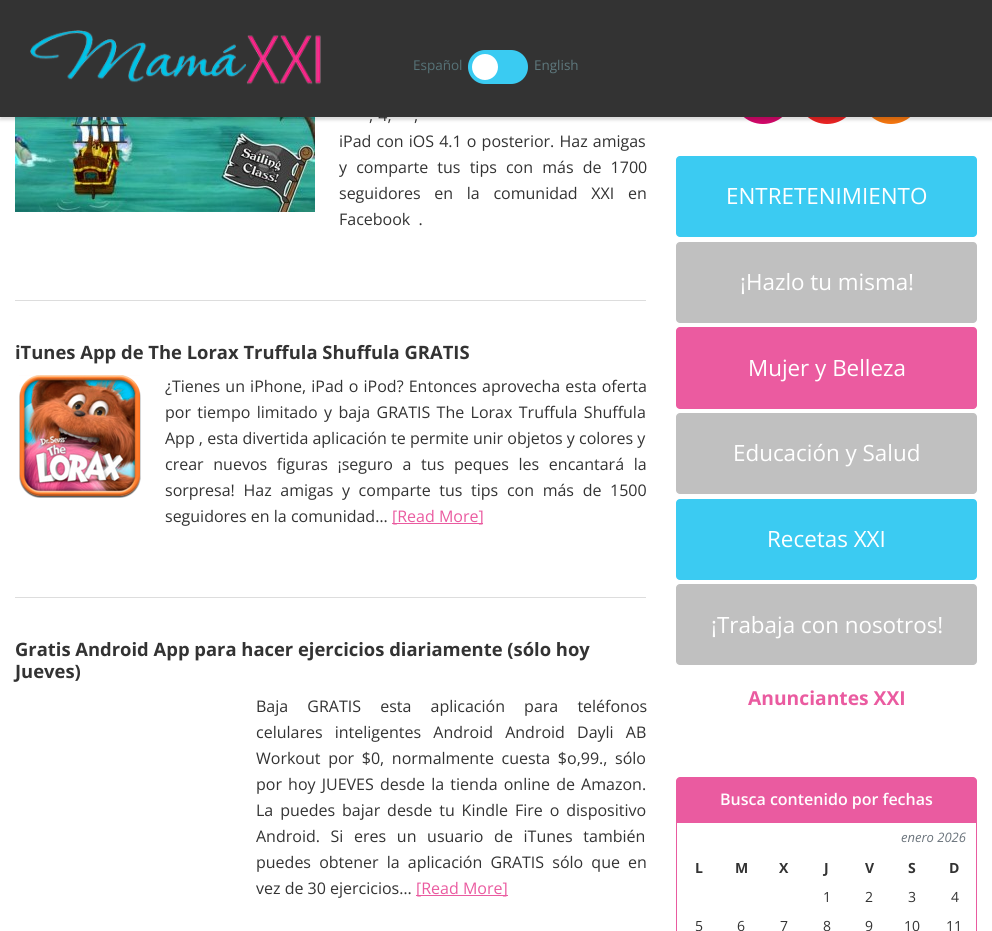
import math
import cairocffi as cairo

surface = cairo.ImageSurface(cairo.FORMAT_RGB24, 992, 931)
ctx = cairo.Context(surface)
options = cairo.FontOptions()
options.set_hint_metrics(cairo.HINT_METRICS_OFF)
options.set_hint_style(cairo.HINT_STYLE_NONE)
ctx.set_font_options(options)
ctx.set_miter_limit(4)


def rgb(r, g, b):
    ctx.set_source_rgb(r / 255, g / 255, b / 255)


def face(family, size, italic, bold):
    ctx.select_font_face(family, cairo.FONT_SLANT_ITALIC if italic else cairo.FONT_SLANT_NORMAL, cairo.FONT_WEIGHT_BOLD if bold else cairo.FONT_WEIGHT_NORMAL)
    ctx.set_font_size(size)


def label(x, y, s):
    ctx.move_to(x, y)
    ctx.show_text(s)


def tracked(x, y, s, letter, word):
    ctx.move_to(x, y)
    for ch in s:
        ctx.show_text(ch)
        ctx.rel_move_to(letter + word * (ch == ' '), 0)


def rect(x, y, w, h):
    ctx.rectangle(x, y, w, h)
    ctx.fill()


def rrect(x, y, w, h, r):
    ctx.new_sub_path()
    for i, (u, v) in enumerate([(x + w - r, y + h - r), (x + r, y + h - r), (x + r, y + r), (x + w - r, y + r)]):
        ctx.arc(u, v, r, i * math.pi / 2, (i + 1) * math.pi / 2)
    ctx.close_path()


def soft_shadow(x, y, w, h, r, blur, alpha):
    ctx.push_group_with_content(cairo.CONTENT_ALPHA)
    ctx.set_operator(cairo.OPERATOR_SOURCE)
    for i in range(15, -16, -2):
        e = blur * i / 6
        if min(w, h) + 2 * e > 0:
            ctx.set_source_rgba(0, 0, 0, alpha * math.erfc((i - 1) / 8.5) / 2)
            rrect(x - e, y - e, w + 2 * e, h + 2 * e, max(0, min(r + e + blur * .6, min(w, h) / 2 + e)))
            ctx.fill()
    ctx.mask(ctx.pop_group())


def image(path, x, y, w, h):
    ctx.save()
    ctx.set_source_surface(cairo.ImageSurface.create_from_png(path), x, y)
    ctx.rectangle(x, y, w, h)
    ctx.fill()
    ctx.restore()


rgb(255, 255, 255)
ctx.paint()
image('image1.png', 15, 117, 300, 95)
rgb(209, 8, 105)
ctx.arc(763, 94, 30, 0, 2 * math.pi)
ctx.fill()
rgb(232, 35, 35)
ctx.arc(827, 94, 30, 0, 2 * math.pi)
ctx.fill()
rgb(243, 118, 16)
ctx.arc(891, 94, 30, 0, 2 * math.pi)
ctx.fill()
rgb(0, 0, 0)
soft_shadow(0, 3, 992, 117, 0, 1.5, 0.15)
rgb(51, 51, 51)
rect(0, 0, 992, 117)
image('image0.png', 30, 30, 291, 55)
face('Open Sans', 13.5, 0, 0)
rgb(86, 114, 119)
label(413, 70, 'Español')
rgb(58, 203, 242)
rrect(468, 50, 60, 34, 17)
ctx.fill()
rgb(255, 255, 255)
ctx.arc(485, 67, 13, 0, 2 * math.pi)
ctx.fill()
rgb(94, 120, 125)
label(534, 70, 'English')
rgb(221, 221, 221)
rect(15, 300, 631, 1)
face('Open Sans', 16, 0, 0)
rgb(51, 51, 51)
tracked(369, 121, ', 4,', 0, 1)
tracked(414, 121, ',', 0, 1)
tracked(339, 147, 'iPad con iOS 4.1 o posterior. Haz amigas', 0, 1)
tracked(339, 173, 'y comparte tus tips con más de 1700', 0, 5)
tracked(339, 199, 'seguidores en la comunidad XXI en', 0, 9.5)
label(339, 225, 'Facebook  .')
rgb(221, 221, 221)
rect(15, 597, 631, 1)
face('Open Sans', 18.4, 0, 1)
rgb(51, 51, 51)
label(15, 359, 'iTunes App de The Lorax Truffula Shuffula GRATIS')
image('image2.png', 19, 375, 122, 123)
face('Open Sans', 16, 0, 0)
tracked(165, 392, '¿Tienes un iPhone, iPad o iPod? Entonces aprovecha esta oferta', 0, 1)
tracked(165, 418, 'por tiempo limitado y baja GRATIS The Lorax Truffula Shuffula', 0, 2.25)
label(165, 444, 'App , esta divertida aplicación te permite unir objetos y colores y')
tracked(165, 470, 'crear nuevos figuras ¡seguro a tus peques les encantará la', 0, 5.5)
tracked(165, 496, 'sorpresa! Haz amigas y comparte tus tips con más de 1500', 0, 4.5)
label(165, 522, 'seguidores en la comunidad…')
rgb(234, 91, 160)
rect(392, 523, 91, 1)
label(392, 522, '[Read More]')
face('Open Sans', 18.4, 0, 1)
rgb(51, 51, 51)
label(15, 656, 'Gratis Android App para hacer ejercicios diariamente (sólo hoy')
label(15, 678, 'Jueves)')
face('Open Sans', 16, 0, 0)
tracked(256, 712, 'Baja GRATIS esta aplicación para teléfonos', 0, 15)
tracked(256, 738, 'celulares inteligentes Android Android Dayli AB', 0, 8)
tracked(256, 764, 'Workout por $0, normalmente cuesta $o,99., sólo', 0, 3.5)
tracked(256, 790, 'por hoy JUEVES desde la tienda online de Amazon.', 0, 2)
tracked(256, 816, 'La puedes bajar desde tu Kindle Fire o dispositivo', 0, 2.75)
tracked(256, 842, 'Android. Si eres un usuario de iTunes también', 0, 6.5)
tracked(256, 868, 'puedes obtener la aplicación GRATIS sólo que en', 0, 4)
label(256, 894, 'vez de 30 ejercicios…')
rgb(234, 91, 160)
rect(416, 895, 92, 1)
label(416, 894, '[Read More]')
rgb(59, 203, 242)
rrect(676, 156, 301, 81, 4)
ctx.fill()
face('Open Sans', 22.4, 0, 0)
rgb(255, 255, 255)
label(726, 204, 'ENTRETENIMIENTO')
rgb(192, 192, 192)
rrect(676, 242, 301, 81, 4)
ctx.fill()
rgb(255, 255, 255)
label(740, 290, '¡Hazlo tu misma!')
rgb(235, 91, 160)
rrect(676, 327, 301, 82, 4)
ctx.fill()
rgb(255, 255, 255)
label(748, 376, 'Mujer y Belleza')
rgb(192, 192, 192)
rrect(676, 413, 301, 81, 4)
ctx.fill()
rgb(255, 255, 255)
label(733, 461, 'Educación y Salud')
rgb(59, 203, 242)
rrect(676, 499, 301, 81, 4)
ctx.fill()
rgb(255, 255, 255)
label(767, 547, 'Recetas XXI')
rgb(192, 192, 192)
rrect(676, 584, 301, 81, 4)
ctx.fill()
rgb(255, 255, 255)
label(711, 633, '¡Trabaja con nosotros!')
face('Open Sans', 19.25, 0, 1)
rgb(234, 91, 160)
label(748, 705, 'Anunciantes XXI')
ctx.new_path()
ctx.move_to(680, 777)
ctx.line_to(973, 777)
ctx.curve_to(975, 777, 977, 779, 977, 781)
ctx.line_to(977, 822)
ctx.line_to(676, 822)
ctx.line_to(676, 781)
ctx.curve_to(676, 779, 678, 777, 680, 777)
ctx.close_path()
ctx.fill()
face('Open Sans SemiBold', 16, 0, 0)
rgb(255, 255, 255)
label(720, 805, 'Busca contenido por fechas')
ctx.rectangle(676.5, 822.5, 300, 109)
rgb(233, 91, 160)
ctx.set_line_width(1)
ctx.stroke()
face('Open Sans', 13, 1, 0)
rgb(108, 117, 125)
label(901, 842, 'enero 2026')
face('Open Sans', 14, 0, 1)
rgb(51, 51, 51)
label(695, 873, 'L')
label(735, 873, 'M')
label(779, 873, 'X')
label(824, 873, 'J')
label(865, 873, 'V')
label(908, 873, 'S')
label(949, 873, 'D')
face('Open Sans', 14, 0, 0)
label(823, 902, '1')
label(865, 902, '2')
label(908, 902, '3')
label(951, 902, '4')
label(695, 931, '5')
label(737, 931, '6')
label(780, 931, '7')
label(823, 931, '8')
label(865, 931, '9')
label(904, 931, '10')
label(946, 931, '11')
surface.write_to_png('render.png')
